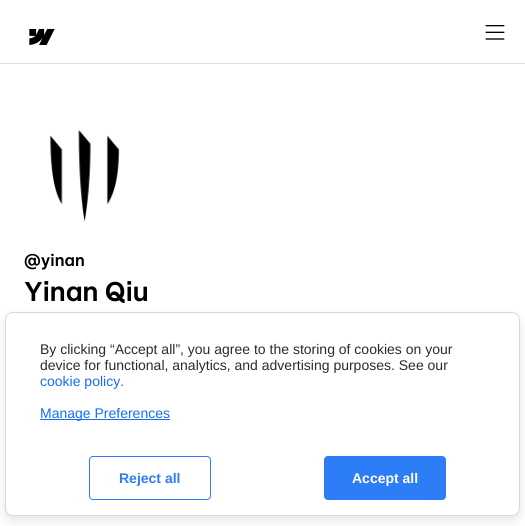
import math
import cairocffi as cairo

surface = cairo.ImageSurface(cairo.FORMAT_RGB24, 525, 526)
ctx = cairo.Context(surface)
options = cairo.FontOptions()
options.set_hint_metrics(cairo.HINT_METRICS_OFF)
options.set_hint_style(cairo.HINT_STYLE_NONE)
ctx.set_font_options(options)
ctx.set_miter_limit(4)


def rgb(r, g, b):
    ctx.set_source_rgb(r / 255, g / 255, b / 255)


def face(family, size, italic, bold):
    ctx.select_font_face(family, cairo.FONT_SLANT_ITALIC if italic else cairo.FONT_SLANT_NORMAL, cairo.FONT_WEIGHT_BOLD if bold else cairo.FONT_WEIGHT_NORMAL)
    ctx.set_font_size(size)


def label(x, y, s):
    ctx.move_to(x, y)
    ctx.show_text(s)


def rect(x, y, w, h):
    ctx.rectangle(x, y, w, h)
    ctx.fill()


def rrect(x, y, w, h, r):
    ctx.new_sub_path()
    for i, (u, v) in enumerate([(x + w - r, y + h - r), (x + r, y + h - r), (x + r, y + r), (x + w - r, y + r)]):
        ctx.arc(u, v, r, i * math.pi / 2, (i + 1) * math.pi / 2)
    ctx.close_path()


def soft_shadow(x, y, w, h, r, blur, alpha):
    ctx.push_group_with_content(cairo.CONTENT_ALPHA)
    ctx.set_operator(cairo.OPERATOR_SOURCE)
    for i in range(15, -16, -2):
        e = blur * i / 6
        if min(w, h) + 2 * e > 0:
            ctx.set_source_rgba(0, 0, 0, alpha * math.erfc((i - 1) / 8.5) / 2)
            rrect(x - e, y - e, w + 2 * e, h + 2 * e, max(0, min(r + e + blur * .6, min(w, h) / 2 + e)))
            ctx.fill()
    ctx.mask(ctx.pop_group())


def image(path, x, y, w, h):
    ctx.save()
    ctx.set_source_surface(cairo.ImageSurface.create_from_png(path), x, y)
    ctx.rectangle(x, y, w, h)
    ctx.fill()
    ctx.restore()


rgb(255, 255, 255)
ctx.paint()
rgb(224, 224, 224)
rect(0, 63, 525, 1)
image('image0.png', 29, 29, 26, 16)
image('image1.png', 485, 25, 20, 15)
image('image2.png', 24, 112, 120, 120)
face('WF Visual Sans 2 SemiBold', 16, 0, 0)
rgb(0, 0, 0)
label(24, 266, '@yinan')
face('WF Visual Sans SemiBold', 26.25, 0, 0)
label(24, 301, 'Yinan Qiu')
rgb(0, 0, 0)
soft_shadow(5, 317, 515, 204, 8, 5, 0.1)
rgb(255, 255, 255)
rrect(5.5, 312.5, 514, 203, 7.5)
ctx.fill_preserve()
rgb(216, 216, 216)
ctx.set_line_width(1)
ctx.stroke()
face('Liberation Sans', 14, 0, 0)
rgb(43, 43, 43)
label(40, 354, 'By clicking “Accept all”, you agree to the storing of cookies on your')
label(40, 370, 'device for functional, analytics, and advertising purposes. See our')
rgb(20, 110, 245)
label(40, 386, 'cookie policy.')
rect(40, 419, 130, 1)
label(40, 418, 'Manage Preferences')
rrect(89.5, 456.5, 121, 43, 3.5)
rgb(44, 125, 246)
ctx.stroke()
face('Liberation Sans', 14, 0, 1)
label(119, 483, 'Reject all')
rrect(324.5, 456.5, 121, 43, 3.5)
ctx.fill_preserve()
ctx.stroke()
rgb(255, 255, 255)
label(352, 483, 'Accept all')
surface.write_to_png('render.png')
